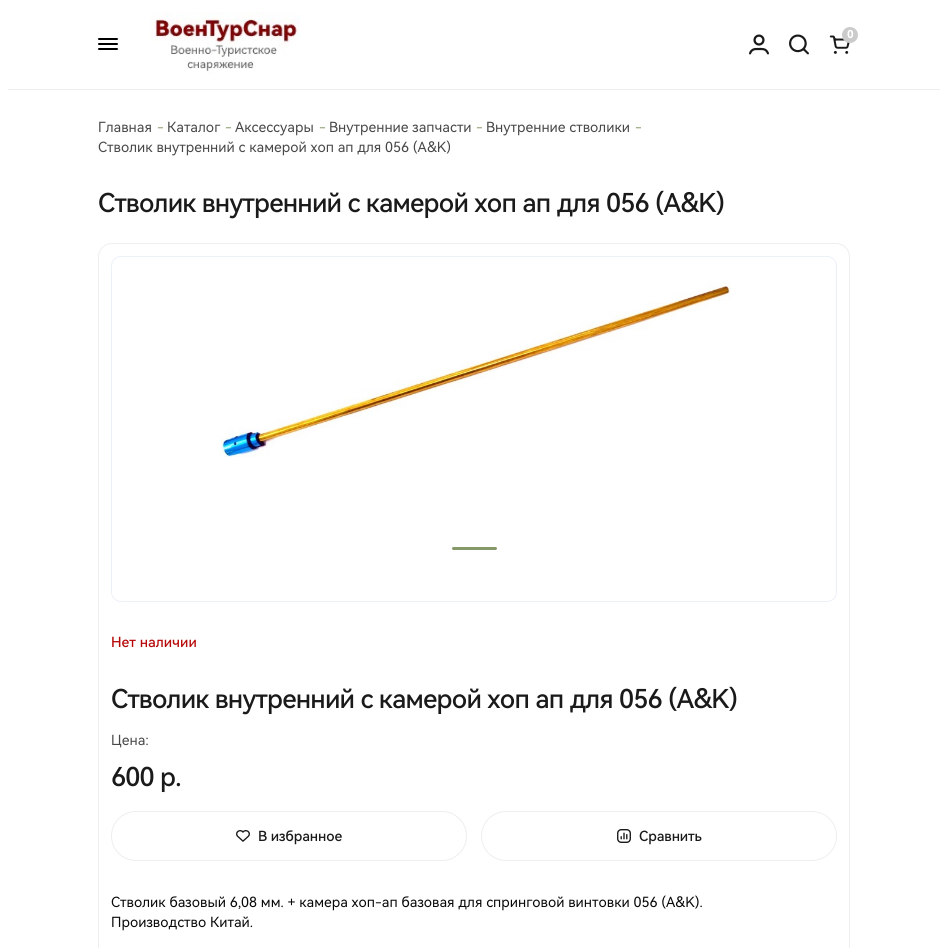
import math
import cairocffi as cairo

surface = cairo.ImageSurface(cairo.FORMAT_RGB24, 948, 948)
ctx = cairo.Context(surface)
options = cairo.FontOptions()
options.set_hint_metrics(cairo.HINT_METRICS_OFF)
options.set_hint_style(cairo.HINT_STYLE_NONE)
ctx.set_font_options(options)
ctx.set_miter_limit(4)


def rgb(r, g, b):
    ctx.set_source_rgb(r / 255, g / 255, b / 255)


def face(family, size, italic, bold):
    ctx.select_font_face(family, cairo.FONT_SLANT_ITALIC if italic else cairo.FONT_SLANT_NORMAL, cairo.FONT_WEIGHT_BOLD if bold else cairo.FONT_WEIGHT_NORMAL)
    ctx.set_font_size(size)


def label(x, y, s):
    ctx.move_to(x, y)
    ctx.show_text(s)


def tracked(x, y, s, letter, word):
    ctx.move_to(x, y)
    for ch in s:
        ctx.show_text(ch)
        ctx.rel_move_to(letter + word * (ch == ' '), 0)


def rect(x, y, w, h):
    ctx.rectangle(x, y, w, h)
    ctx.fill()


def rrect(x, y, w, h, r):
    ctx.new_sub_path()
    for i, (u, v) in enumerate([(x + w - r, y + h - r), (x + r, y + h - r), (x + r, y + r), (x + w - r, y + r)]):
        ctx.arc(u, v, r, i * math.pi / 2, (i + 1) * math.pi / 2)
    ctx.close_path()


def image(path, x, y, w, h):
    ctx.save()
    ctx.set_source_surface(cairo.ImageSurface.create_from_png(path), x, y)
    ctx.rectangle(x, y, w, h)
    ctx.fill()
    ctx.restore()


rgb(255, 255, 255)
ctx.paint()
rgb(238, 238, 238)
rect(8, 89, 932, 1)
rgb(0, 0, 0)
rrect(98, 38, 20, 2, 1)
ctx.fill()
rrect(98, 43, 20, 2, 1)
ctx.fill()
rrect(98, 48, 20, 2, 1)
ctx.fill()
image('image0.png', 150, 12, 150, 62)
image('image1.png', 749, 34, 20, 21)
image('image2.png', 789, 34, 20, 21)
image('image3.png', 829, 35, 21, 19)
rgb(203, 203, 203)
ctx.arc(850, 35, 8, 0, 2 * math.pi)
ctx.fill()
face('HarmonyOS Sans', 11, 0, 1)
rgb(255, 255, 255)
label(847, 38, '0')
face('HarmonyOS Sans', 14, 0, 0)
rgb(72, 72, 72)
label(98, 132, 'Главная')
rgb(134, 153, 104)
label(157, 132, '-')
rgb(72, 72, 72)
label(167, 132, 'Каталог')
rgb(134, 153, 104)
label(225, 132, '-')
rgb(72, 72, 72)
label(235, 132, 'Аксессуары')
rgb(134, 153, 104)
label(319, 132, '-')
rgb(72, 72, 72)
label(329, 132, 'Внутренние запчасти')
rgb(134, 153, 104)
label(476, 132, '-')
rgb(72, 72, 72)
label(486, 132, 'Внутренние стволики')
rgb(134, 153, 104)
label(635, 132, '-')
rgb(72, 72, 72)
label(98, 152, 'Стволик внутренний с камерой хоп ап для 056 (A&K)')
face('HarmonyOS Sans Medium', 26, 0, 0)
rgb(26, 26, 26)
tracked(98, 212, 'Стволик внутренний с камерой хоп ап для 056 (A&K)', -0.8, 0)
rrect(98.5, 243.5, 751, 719, 13.5)
rgb(238, 238, 238)
ctx.set_line_width(1)
ctx.stroke()
rrect(111.5, 256.5, 725, 345, 9.5)
rgb(236, 240, 248)
ctx.stroke()
image('image4.png', 220, 282, 511, 175)
rgb(134, 153, 104)
rrect(452, 547, 45, 3, 1.5)
ctx.fill()
face('HarmonyOS Sans Medium', 14, 0, 0)
rgb(183, 11, 11)
label(111, 647, 'Нет наличии')
face('HarmonyOS Sans Medium', 26, 0, 0)
rgb(26, 26, 26)
tracked(111, 708, 'Стволик внутренний с камерой хоп ап для 056 (A&K)', -0.8, 0)
face('HarmonyOS Sans', 14, 0, 0)
rgb(72, 72, 72)
label(111, 745, 'Цена:')
face('HarmonyOS Sans Medium', 26, 0, 0)
rgb(26, 26, 26)
tracked(111, 786, '600 р.', -0.8, 0)
rrect(111.5, 811.5, 355, 49, 24.5)
rgb(238, 238, 238)
ctx.stroke()
image('image5.png', 236, 830, 14, 12)
face('HarmonyOS Sans Medium', 14, 0, 0)
rgb(26, 26, 26)
tracked(258, 841, 'В избранное', -0.1, 0)
rrect(481.5, 811.5, 355, 49, 24.5)
rgb(238, 238, 238)
ctx.stroke()
image('image6.png', 617, 829, 14, 14)
rgb(26, 26, 26)
tracked(639, 841, 'Сравнить', -0.1, 0)
face('HarmonyOS Sans', 14, 0, 0)
rgb(9, 9, 10)
label(111, 907, 'Стволик базовый 6,08 мм. + камера хоп-ап базовая для спринговой винтовки 056 (A&K).')
label(111, 927, 'Производство Китай.')
surface.write_to_png('render.png')
